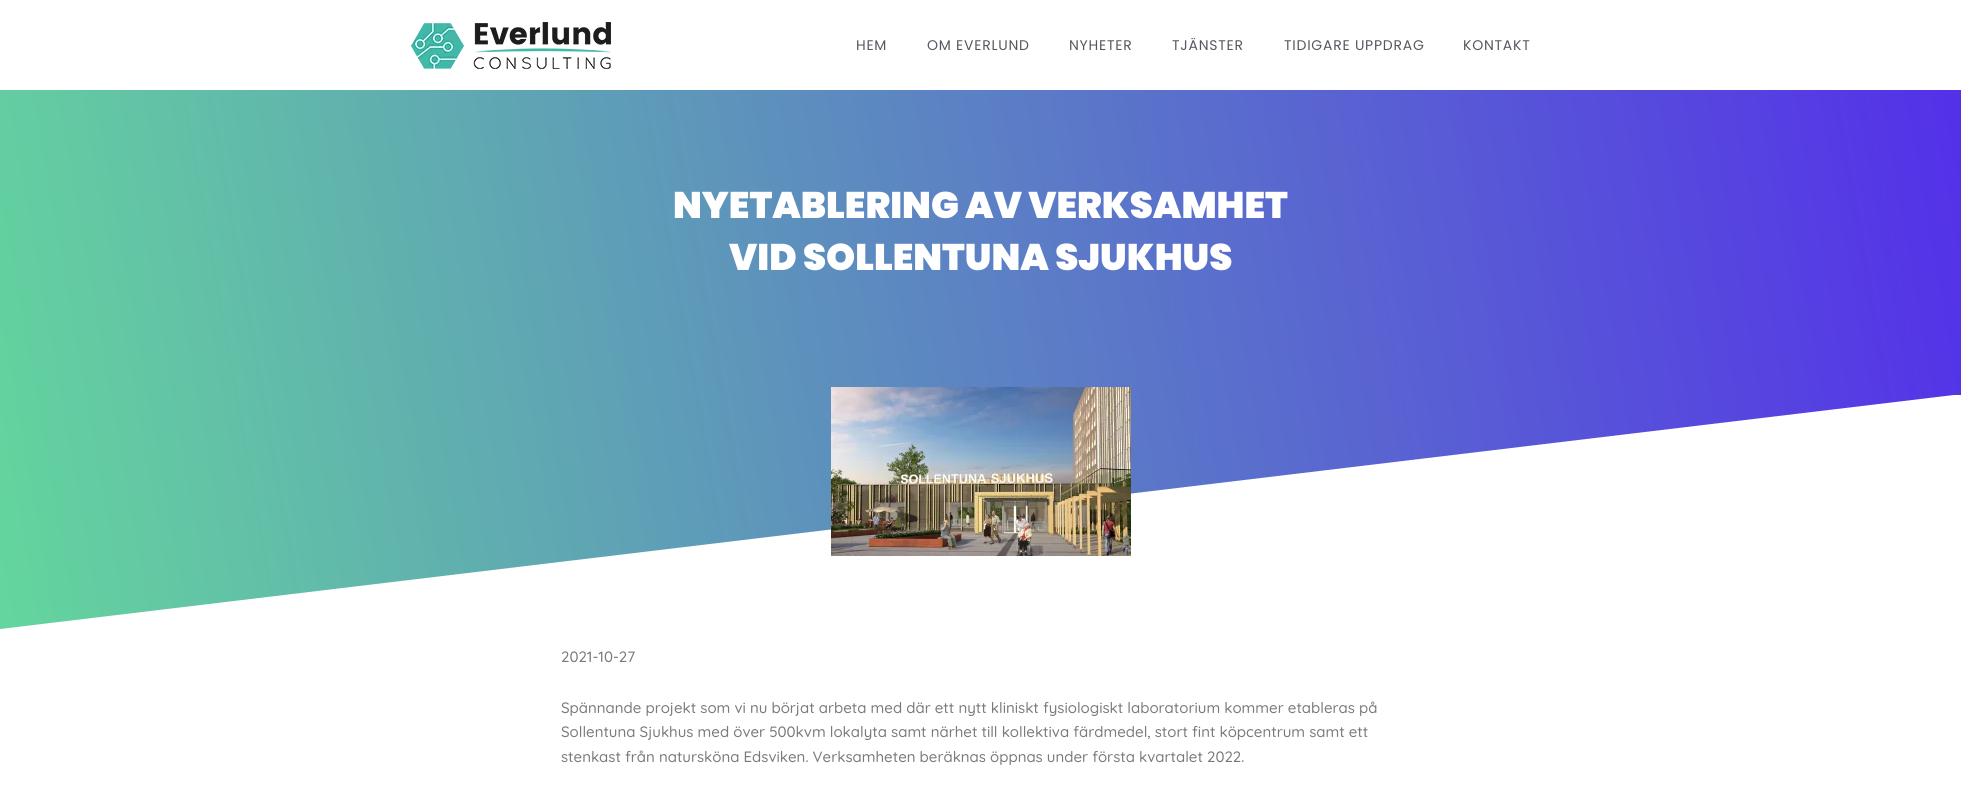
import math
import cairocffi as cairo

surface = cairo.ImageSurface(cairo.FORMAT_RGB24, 1961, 811)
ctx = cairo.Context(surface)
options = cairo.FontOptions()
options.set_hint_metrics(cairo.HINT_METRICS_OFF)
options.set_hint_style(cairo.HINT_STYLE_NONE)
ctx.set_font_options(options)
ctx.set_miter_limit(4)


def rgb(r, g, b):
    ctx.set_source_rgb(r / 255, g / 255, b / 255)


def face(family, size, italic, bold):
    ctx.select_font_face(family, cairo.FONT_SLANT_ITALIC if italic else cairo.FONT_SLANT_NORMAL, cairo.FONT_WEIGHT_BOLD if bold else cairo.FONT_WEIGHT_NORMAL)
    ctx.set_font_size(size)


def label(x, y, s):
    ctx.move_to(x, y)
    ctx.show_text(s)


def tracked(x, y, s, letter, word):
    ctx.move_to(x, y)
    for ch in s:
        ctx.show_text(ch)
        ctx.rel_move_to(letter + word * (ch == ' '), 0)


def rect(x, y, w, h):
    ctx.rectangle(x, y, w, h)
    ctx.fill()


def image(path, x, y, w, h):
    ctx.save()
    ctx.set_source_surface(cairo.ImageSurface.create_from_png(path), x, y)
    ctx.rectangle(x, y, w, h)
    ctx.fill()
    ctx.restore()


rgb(255, 255, 255)
ctx.paint()
image('image0.png', 411, 22, 200, 47)
face('Poppins', 14, 0, 0)
rgb(84, 89, 95)
tracked(856, 50, 'HEM', 0.75, 0)
tracked(927, 50, 'OM EVERLUND', 0.75, 0)
tracked(1069, 50, 'NYHETER', 0.75, 0)
tracked(1172, 50, 'TJÄNSTER', 0.75, 0)
tracked(1284, 50, 'TIDIGARE UPPDRAG', 0.75, 0)
tracked(1463, 50, 'KONTAKT', 0.75, 0)
gradient = cairo.LinearGradient(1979, 191, -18, 543)
gradient.add_color_stop_rgba(0, 0.329, 0.188, 0.914, 1)
gradient.add_color_stop_rgba(1, 0.392, 0.839, 0.616, 1)
ctx.set_source(gradient)
rect(0, 90, 1961, 539)
face('Poppins Black', 37, 0, 0)
rgb(255, 255, 255)
label(673, 218, 'NYETABLERING AV VERKSAMHET')
label(729, 270, 'VID SOLLENTUNA SJUKHUS')
ctx.save()
ctx.rectangle(0, 395, 1961, 250)
ctx.clip()
ctx.new_path()
ctx.move_to(0, 629)
ctx.line_to(0, 644)
ctx.line_to(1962, 644)
ctx.line_to(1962, 394)
ctx.close_path()
ctx.fill()
ctx.restore()
image('image1.png', 831, 387, 300, 169)
face('Quicksand Medium', 15, 0, 0)
rgb(122, 122, 122)
label(561, 662, '2021-10-27')
label(561, 713, 'Spännande projekt som vi nu börjat arbeta med där ett nytt kliniskt fysiologiskt laboratorium kommer etableras på')
label(561, 737, 'Sollentuna Sjukhus med över 500kvm lokalyta samt närhet till kollektiva färdmedel, stort fint köpcentrum samt ett')
label(561, 762, 'stenkast från natursköna Edsviken. Verksamheten beräknas öppnas under första kvartalet 2022.')
surface.write_to_png('render.png')
